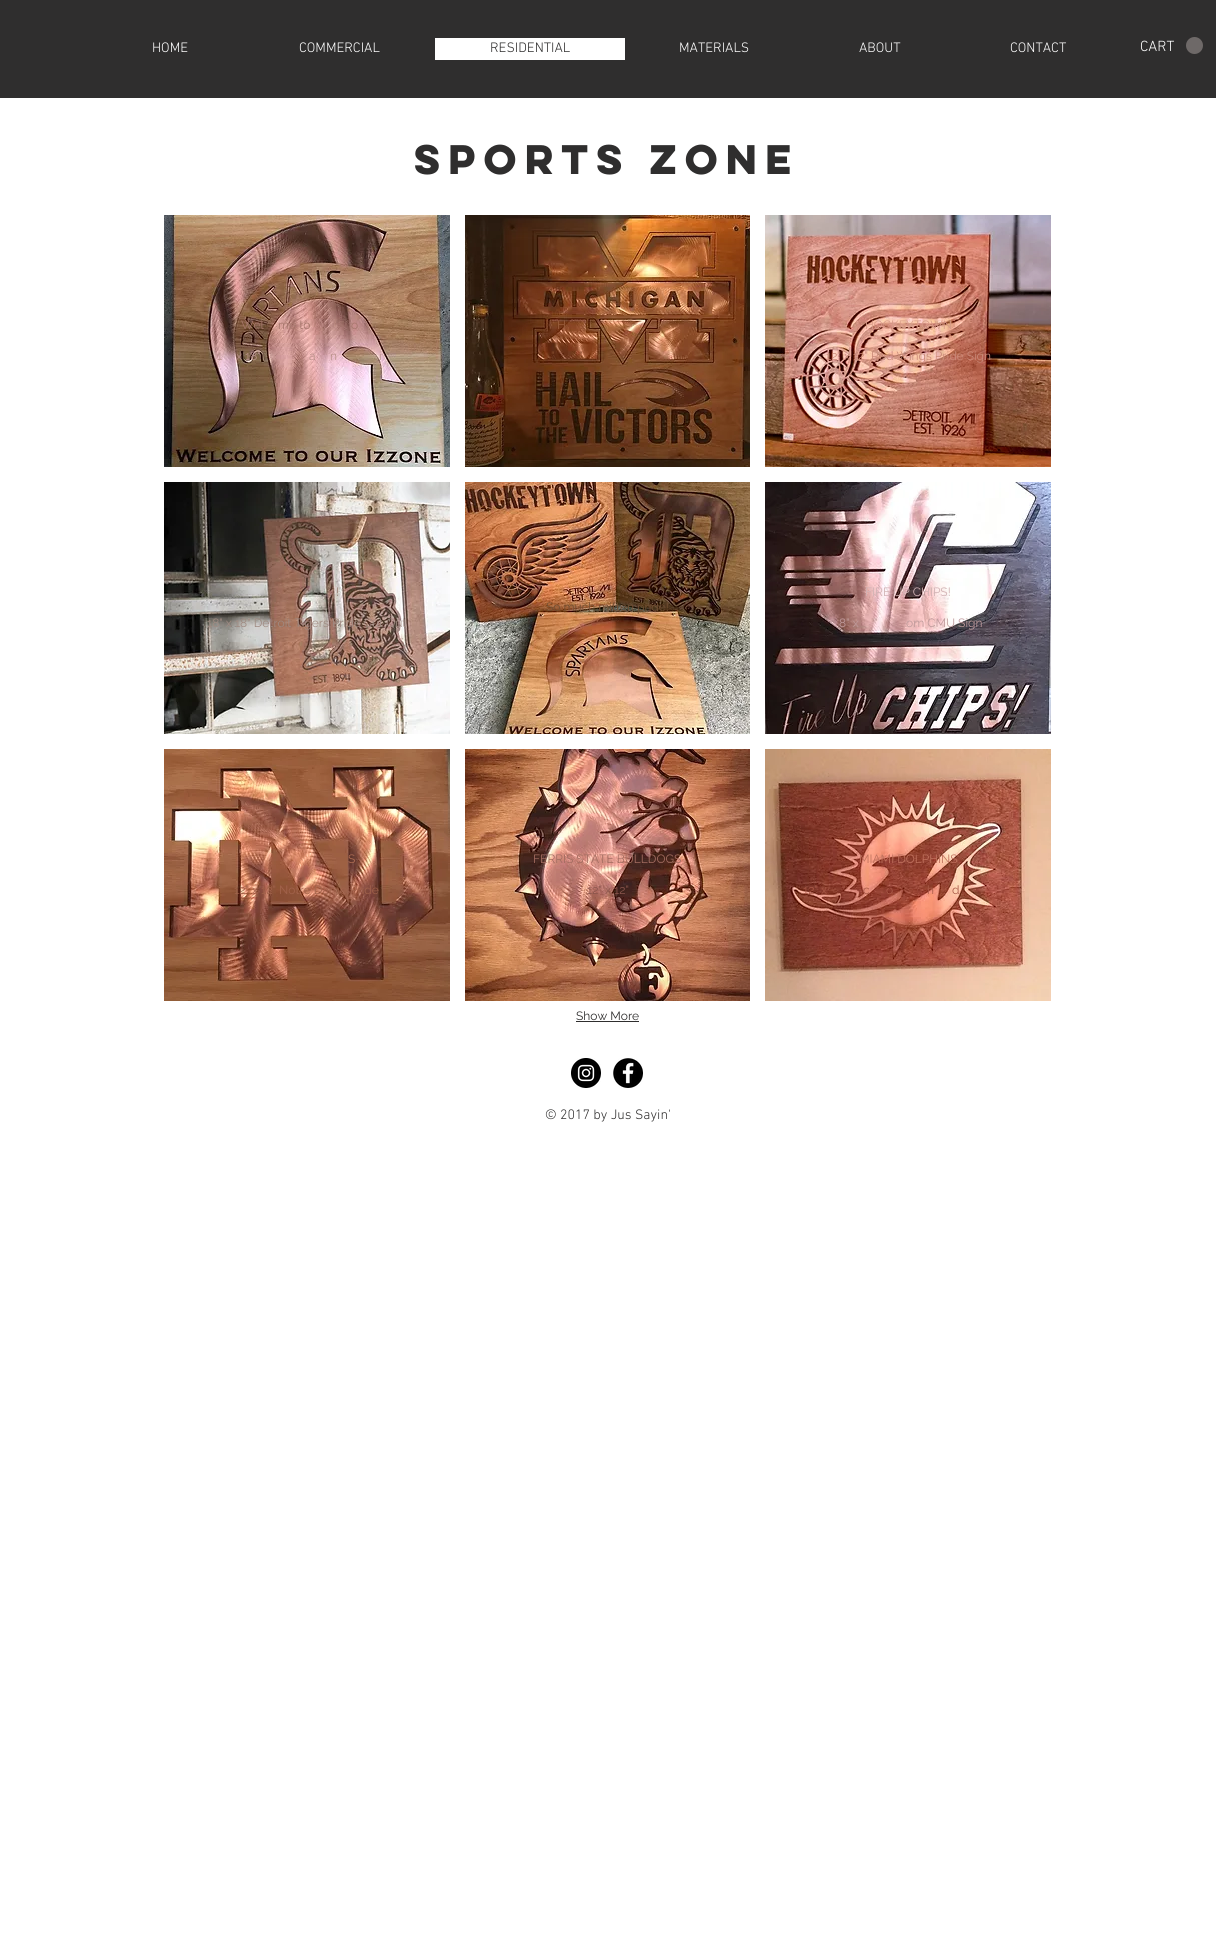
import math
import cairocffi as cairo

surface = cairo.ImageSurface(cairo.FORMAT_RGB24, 1216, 1940)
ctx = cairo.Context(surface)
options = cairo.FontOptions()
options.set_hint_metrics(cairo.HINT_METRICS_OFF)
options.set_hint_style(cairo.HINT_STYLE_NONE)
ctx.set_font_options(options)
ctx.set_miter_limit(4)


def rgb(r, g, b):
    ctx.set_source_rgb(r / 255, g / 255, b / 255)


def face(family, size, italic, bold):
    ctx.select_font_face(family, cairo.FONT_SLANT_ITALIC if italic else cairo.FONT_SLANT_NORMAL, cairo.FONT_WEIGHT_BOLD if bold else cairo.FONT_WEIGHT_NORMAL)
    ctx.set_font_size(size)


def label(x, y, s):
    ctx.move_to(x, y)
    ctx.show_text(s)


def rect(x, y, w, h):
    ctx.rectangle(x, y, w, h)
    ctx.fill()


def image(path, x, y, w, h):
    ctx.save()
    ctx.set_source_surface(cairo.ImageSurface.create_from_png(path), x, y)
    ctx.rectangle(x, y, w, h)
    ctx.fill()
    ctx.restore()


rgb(255, 255, 255)
ctx.paint()
rgb(47, 46, 46)
rect(0, 0, 1216, 98)
face('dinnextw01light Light', 14, 0, 0)
rgb(255, 255, 255)
label(152, 52, 'HOME')
label(299, 52, 'COMMERCIAL')
rect(435, 38, 190, 22)
rgb(47, 46, 46)
label(490, 52, 'RESIDENTIAL')
rgb(255, 255, 255)
label(679, 52, 'MATERIALS')
label(859, 52, 'ABOUT')
label(1010, 52, 'CONTACT')
rgb(110, 105, 104)
ctx.new_path()
ctx.arc(1194.5, 45.5, 8.5, 0, 2 * math.pi)
ctx.fill()
face('dinnextw01light Light', 15, 0, 0)
rgb(255, 255, 255)
label(1140, 51, 'CART')
face('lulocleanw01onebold', 37, 0, 1)
rgb(47, 46, 46)
label(414, 174, 'SPORTS ZONE')
image('image0.png', 164, 215, 286, 252)
face('Raleway', 12, 0, 0)
rgb(165, 118, 107)
label(241, 329, 'Wel')
label(278, 329, 'me to')
label(351, 329, 'o')
rgb(185, 145, 138)
label(217, 360, '1')
label(236, 360, 'x 18"')
label(309, 360, 'a')
label(330, 360, 'n')
label(379, 360, 'i')
image('image1.png', 465, 215, 285, 252)
rgb(154, 94, 61)
label(557, 329, 'H')
rgb(133, 76, 44)
label(551, 360, '"')
label(579, 360, '"')
image('image2.png', 765, 215, 286, 252)
rgb(215, 155, 135)
label(865, 329, 'HOCKEYTOWN')
rgb(202, 138, 121)
label(826, 360, '12" x 12" Red Wings Pride Sign')
image('image3.png', 164, 482, 286, 252)
rgb(154, 128, 116)
label(336, 596, '!')
rgb(159, 138, 129)
label(207, 627, '18" x 18" Detroit Tigers Pride Cut Out')
image('image4.png', 465, 482, 285, 252)
rgb(114, 79, 51)
label(546, 611, 'So much mitten pride!')
image('image5.png', 765, 482, 286, 252)
rgb(209, 178, 180)
label(865, 596, 'FIRE UP CHIPS!')
rgb(191, 155, 156)
label(839, 627, '8" x')
label(874, 627, '"')
label(906, 627, 'om CMU Sign')
image('image6.png', 164, 749, 286, 252)
rgb(176, 109, 83)
label(348, 863, 'S')
rgb(161, 98, 75)
label(234, 894, '12" x 12" Notre Dame Pride')
image('image7.png', 465, 749, 285, 252)
rgb(162, 108, 96)
label(533, 863, 'FERRIS STATE BULLDOGS')
rgb(138, 85, 76)
label(587, 894, '12" x 12"')
image('image8.png', 765, 749, 286, 252)
rgb(191, 113, 93)
label(859, 863, 'MIAMI DOLPHINS')
rgb(169, 89, 71)
label(803, 894, '12" x')
label(842, 894, '"')
label(863, 894, 'c')
label(886, 894, 'o')
label(927, 894, 'h')
label(952, 894, 'd')
rgb(47, 46, 46)
label(576, 1020, 'Show More')
rect(576, 1021, 63, 1)
image('image9.png', 571, 1058, 30, 30)
image('image10.png', 613, 1058, 30, 30)
face('dinnextw01light Light', 14, 0, 0)
label(545, 1119, '© 2017 by Jus Sayin\'')
surface.write_to_png('render.png')
